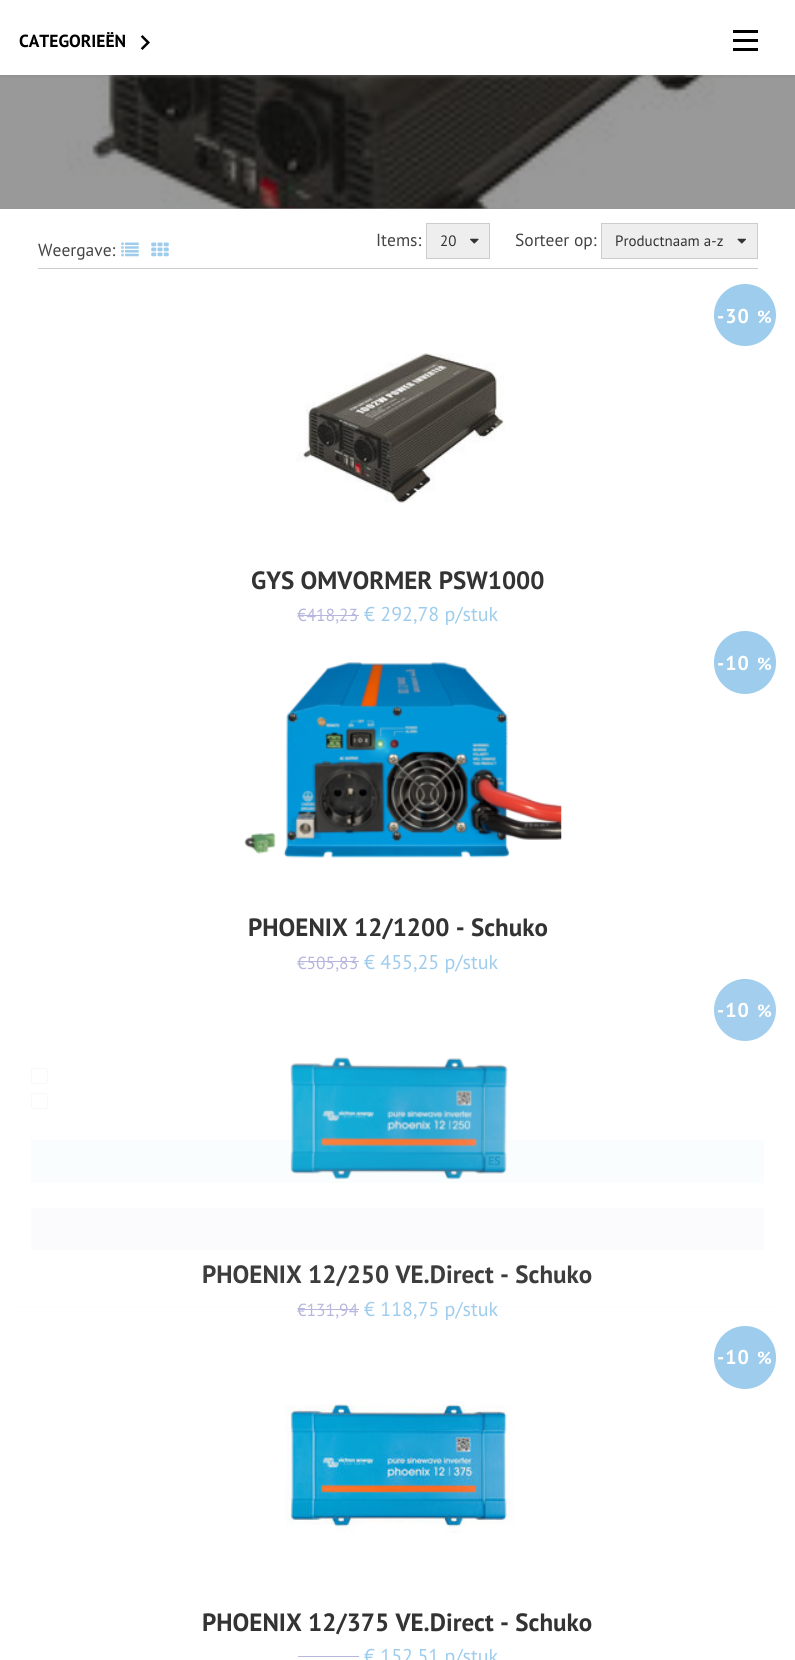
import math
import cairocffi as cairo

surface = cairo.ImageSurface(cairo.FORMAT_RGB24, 795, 1660)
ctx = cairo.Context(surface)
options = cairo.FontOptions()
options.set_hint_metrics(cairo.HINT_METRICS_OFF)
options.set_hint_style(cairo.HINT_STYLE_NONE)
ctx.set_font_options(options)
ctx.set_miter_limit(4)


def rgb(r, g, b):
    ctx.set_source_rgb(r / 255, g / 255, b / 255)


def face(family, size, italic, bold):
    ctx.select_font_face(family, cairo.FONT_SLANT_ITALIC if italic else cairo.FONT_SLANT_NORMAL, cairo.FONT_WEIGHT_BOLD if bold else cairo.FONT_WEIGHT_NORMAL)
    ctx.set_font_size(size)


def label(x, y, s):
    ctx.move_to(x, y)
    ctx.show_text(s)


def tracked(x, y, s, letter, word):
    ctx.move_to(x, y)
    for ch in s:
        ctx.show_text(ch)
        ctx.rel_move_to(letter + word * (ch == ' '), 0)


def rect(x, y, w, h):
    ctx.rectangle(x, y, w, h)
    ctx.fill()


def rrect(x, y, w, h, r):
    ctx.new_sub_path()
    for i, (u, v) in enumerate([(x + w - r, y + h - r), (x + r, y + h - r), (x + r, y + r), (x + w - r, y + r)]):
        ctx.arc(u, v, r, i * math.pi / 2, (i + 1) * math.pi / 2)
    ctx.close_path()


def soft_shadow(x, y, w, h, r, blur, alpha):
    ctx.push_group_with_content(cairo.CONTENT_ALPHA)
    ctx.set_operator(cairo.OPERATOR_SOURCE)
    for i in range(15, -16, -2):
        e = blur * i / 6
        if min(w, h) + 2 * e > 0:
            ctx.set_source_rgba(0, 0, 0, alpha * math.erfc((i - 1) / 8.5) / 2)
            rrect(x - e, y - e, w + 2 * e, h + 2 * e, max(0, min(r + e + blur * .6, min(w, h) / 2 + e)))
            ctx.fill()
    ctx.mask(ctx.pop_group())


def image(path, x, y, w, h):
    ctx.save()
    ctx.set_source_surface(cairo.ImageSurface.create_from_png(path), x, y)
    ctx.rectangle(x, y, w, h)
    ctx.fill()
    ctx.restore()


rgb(255, 255, 255)
ctx.paint()
rgb(153, 153, 153)
rect(0, 75, 795, 134)
image('image1.png', 66, 75, 681, 134)
rgb(128, 128, 128)
soft_shadow(0, 1, 795, 75, 0, 2, 0.5)
rgb(255, 255, 255)
rect(0, 0, 795, 75)
face('PT Sans', 17.5, 0, 1)
rgb(0, 0, 0)
label(19, 47, 'CATEGORIEËN')
image('image0.png', 140, 35, 10, 15)
rect(733, 30, 25, 3)
rect(733, 39, 25, 3)
rect(733, 48, 25, 3)
rgb(204, 204, 204)
rect(38, 268, 720, 1)
face('PT Sans', 17.5, 0, 0)
rgb(68, 68, 68)
label(38, 256, 'Weergave:')
image('image2.png', 121, 242, 18, 15)
image('image3.png', 151, 242, 18, 15)
label(376, 246, 'Items:')
rgb(238, 238, 238)
ctx.rectangle(426.5, 223.5, 63, 35)
ctx.fill_preserve()
rgb(204, 204, 204)
ctx.set_line_width(1)
ctx.stroke()
face('PT Sans', 15, 0, 0)
rgb(51, 51, 51)
label(440, 246, '20')
image('image4.png', 470, 238, 9, 6)
face('PT Sans', 17.5, 0, 0)
rgb(68, 68, 68)
label(515, 246, 'Sorteer op:')
rgb(238, 238, 238)
ctx.rectangle(601.5, 223.5, 156, 35)
ctx.fill_preserve()
rgb(204, 204, 204)
ctx.stroke()
face('PT Sans', 15, 0, 0)
rgb(51, 51, 51)
label(615, 246, 'Productnaam a-z')
image('image5.png', 737, 238, 9, 6)
rgb(158, 204, 237)
ctx.arc(745, 315, 31, 0, 2 * math.pi)
ctx.fill()
face('PT Sans', 20, 0, 1)
rgb(255, 255, 255)
tracked(717, 323, '-30', 1, 0)
face('PT Sans', 17.5, 0, 1)
tracked(757, 323, '%', 1, 0)
image('image6.png', 296, 353, 209, 150)
face('PT Sans', 25, 0, 1)
rgb(51, 51, 51)
label(251, 589, 'GYS OMVORMER PSW1000')
face('PT Sans', 17.5, 0, 0)
rgb(182, 182, 222)
label(297, 621, '€418,23')
rect(298, 615, 61, 1)
face('PT Sans', 20, 0, 0)
rgb(158, 204, 237)
label(364, 621, '€ 292,78 p/stuk')
image('image7.png', 244, 662, 318, 196)
rrect(714, 631, 62, 63, 31)
ctx.fill()
face('PT Sans', 20, 0, 1)
rgb(255, 255, 255)
tracked(717, 670, '-10', 1, 0)
face('PT Sans', 17.5, 0, 1)
tracked(757, 670, '%', 1, 0)
face('PT Sans', 25, 0, 1)
rgb(51, 51, 51)
label(248, 936, 'PHOENIX 12/1200 - Schuko')
face('PT Sans', 17.5, 0, 0)
rgb(182, 182, 222)
label(297, 969, '€505,83')
rect(298, 961, 61, 1)
face('PT Sans', 20, 0, 0)
rgb(158, 204, 237)
label(364, 969, '€ 455,25 p/stuk')
ctx.new_path()
ctx.arc(745, 1010, 31, 0, 2 * math.pi)
ctx.fill()
face('PT Sans', 20, 0, 1)
rgb(255, 255, 255)
tracked(717, 1017, '-10', 1, 0)
face('PT Sans', 17.5, 0, 1)
tracked(757, 1017, '%', 1, 0)
image('image8.png', 290, 1057, 218, 123)
face('PT Sans', 25, 0, 1)
rgb(51, 51, 51)
label(202, 1283, 'PHOENIX 12/250 VE.Direct - Schuko')
face('PT Sans', 17.5, 0, 0)
rgb(182, 182, 222)
label(297, 1316, '€131,94')
rect(298, 1309, 61, 1)
face('PT Sans', 20, 0, 0)
rgb(158, 204, 237)
label(364, 1316, '€ 118,75 p/stuk')
rrect(714, 1326, 62, 63, 31)
ctx.fill()
face('PT Sans', 20, 0, 1)
rgb(255, 255, 255)
tracked(717, 1364, '-10', 1, 0)
face('PT Sans', 17.5, 0, 1)
tracked(757, 1364, '%', 1, 0)
image('image9.png', 285, 1404, 230, 129)
face('PT Sans', 25, 0, 1)
rgb(51, 51, 51)
label(202, 1631, 'PHOENIX 12/375 VE.Direct - Schuko')
rgb(182, 182, 222)
rect(298, 1656, 61, 1)
face('PT Sans', 20, 0, 0)
rgb(158, 204, 237)
label(364, 1663, '€ 152,51 p/stuk')
ctx.set_source_rgba(1, 1, 1, 0.05)
rect(204, 981, 572, 327)
ctx.set_source_rgba(0.733, 0.733, 0.733, 0.05)
rect(19, 1306, 757, 1)
rrect(31.5, 1068.5, 16, 15, 2)
rgb(248, 248, 248)
ctx.stroke()
rrect(31.5, 1093.5, 16, 15, 2)
ctx.stroke()
ctx.set_source_rgba(0.62, 0.8, 0.929, 0.05)
rect(31, 1140, 733, 43)
face('PT Sans', 12, 0, 1)
rgb(26, 155, 198)
label(488, 1165, 'ES')
rgb(251, 251, 253)
rect(31, 1208, 733, 42)
surface.write_to_png('render.png')
